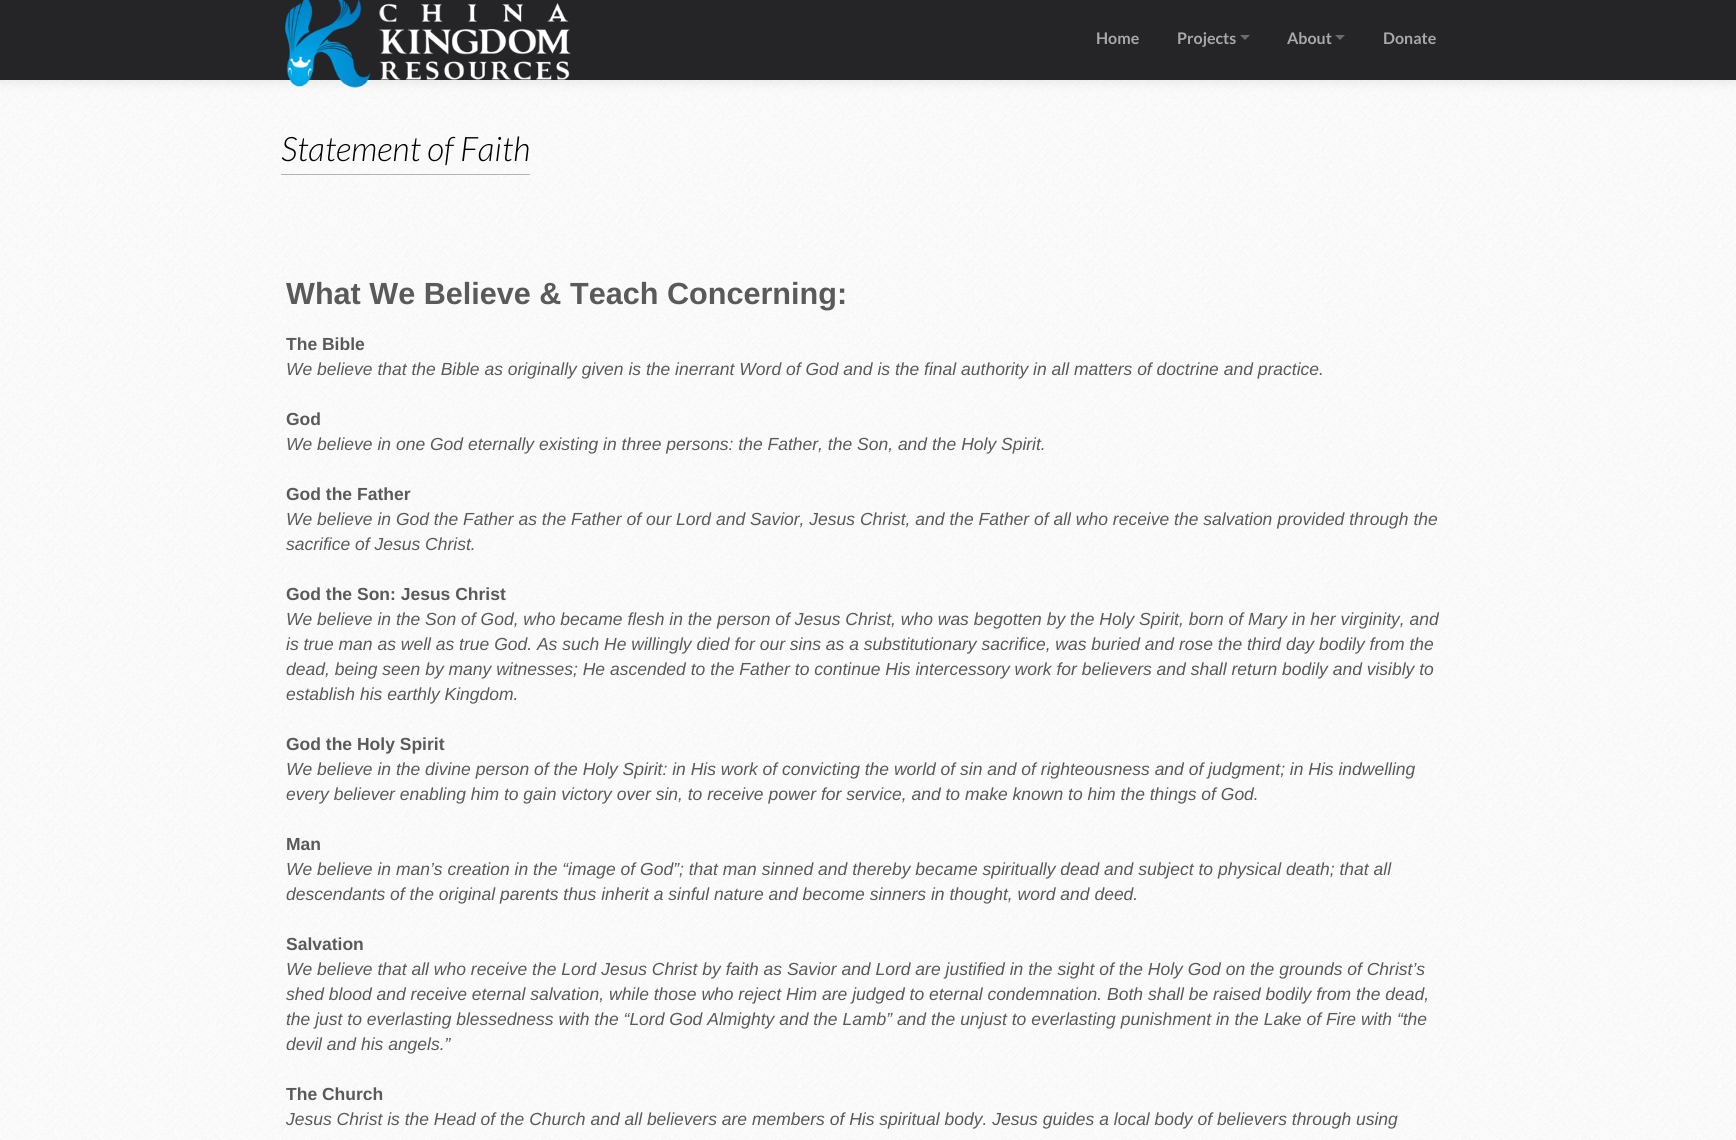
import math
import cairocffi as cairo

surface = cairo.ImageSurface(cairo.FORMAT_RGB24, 1736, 1140)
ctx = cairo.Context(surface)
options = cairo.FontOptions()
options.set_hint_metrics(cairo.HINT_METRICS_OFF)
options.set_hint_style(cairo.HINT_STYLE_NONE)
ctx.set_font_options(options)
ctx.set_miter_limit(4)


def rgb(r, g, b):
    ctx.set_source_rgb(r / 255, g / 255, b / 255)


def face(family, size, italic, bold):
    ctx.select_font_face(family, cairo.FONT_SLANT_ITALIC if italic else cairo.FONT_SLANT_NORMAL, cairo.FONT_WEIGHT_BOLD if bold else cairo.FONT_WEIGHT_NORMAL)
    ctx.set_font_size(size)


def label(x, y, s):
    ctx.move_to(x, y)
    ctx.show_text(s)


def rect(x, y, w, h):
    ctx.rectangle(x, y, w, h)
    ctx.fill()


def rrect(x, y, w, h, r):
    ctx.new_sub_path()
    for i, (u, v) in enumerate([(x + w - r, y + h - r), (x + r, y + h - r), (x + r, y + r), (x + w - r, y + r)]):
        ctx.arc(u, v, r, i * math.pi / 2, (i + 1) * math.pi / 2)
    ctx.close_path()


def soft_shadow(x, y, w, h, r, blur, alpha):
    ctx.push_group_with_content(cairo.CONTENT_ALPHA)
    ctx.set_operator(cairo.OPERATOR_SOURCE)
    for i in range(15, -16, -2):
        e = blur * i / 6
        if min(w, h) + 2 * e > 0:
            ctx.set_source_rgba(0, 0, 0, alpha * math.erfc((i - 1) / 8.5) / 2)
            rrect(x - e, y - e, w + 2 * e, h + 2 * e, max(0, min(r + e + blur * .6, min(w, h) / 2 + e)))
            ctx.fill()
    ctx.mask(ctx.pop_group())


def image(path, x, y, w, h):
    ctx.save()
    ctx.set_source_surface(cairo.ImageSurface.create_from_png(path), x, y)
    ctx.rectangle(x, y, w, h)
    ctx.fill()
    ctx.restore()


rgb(255, 255, 255)
ctx.paint()
image('image0.png', 0, 80, 1736, 1060)
rgb(0, 0, 0)
soft_shadow(0, 1, 1736, 80, 0, 6, 0.1)
rgb(37, 37, 40)
rect(0, 0, 1736, 79)
rgb(37, 37, 37)
rect(0, 79, 1736, 1)
image('image1.png', 285, 0, 286, 88)
face('Lato', 16, 0, 1)
rgb(168, 168, 169)
label(1096, 44, 'Home')
label(1177, 44, 'Projects')
rgb(107, 107, 108)
ctx.new_path()
ctx.move_to(1240, 35)
ctx.line_to(1250, 35)
ctx.line_to(1245, 40)
ctx.close_path()
ctx.fill()
rgb(168, 168, 169)
label(1287, 44, 'About')
rgb(107, 107, 108)
ctx.new_path()
ctx.move_to(1335, 35)
ctx.line_to(1345, 35)
ctx.line_to(1340, 40)
ctx.close_path()
ctx.fill()
rgb(168, 168, 169)
label(1383, 44, 'Donate')
rgb(179, 179, 179)
rect(281, 174, 249, 1)
face('Lato Light', 33.75, 1, 0)
rgb(0, 0, 0)
label(281, 161, 'Statement of Faith')
face('Liberation Sans', 30.6, 0, 1)
rgb(90, 90, 90)
label(286, 304, 'What We Believe & Teach Concerning:')
face('Liberation Sans', 17.5, 0, 1)
label(286, 350, 'The Bible')
face('Liberation Sans', 17.5, 1, 0)
label(286, 375, 'We believe that the Bible as originally given is the inerrant Word of God and is the final authority in all matters of doctrine and practice.')
face('Liberation Sans', 17.5, 0, 1)
label(286, 425, 'God')
face('Liberation Sans', 17.5, 1, 0)
label(286, 450, 'We believe in one God eternally existing in three persons: the Father, the Son, and the Holy Spirit.')
face('Liberation Sans', 17.5, 0, 1)
label(286, 500, 'God the Father')
face('Liberation Sans', 17.5, 1, 0)
label(286, 525, 'We believe in God the Father as the Father of our Lord and Savior, Jesus Christ, and the Father of all who receive the salvation provided through the')
label(286, 550, 'sacrifice of Jesus Christ.')
face('Liberation Sans', 17.5, 0, 1)
label(286, 600, 'God the Son: Jesus Christ')
face('Liberation Sans', 17.5, 1, 0)
label(286, 625, 'We believe in the Son of God, who became flesh in the person of Jesus Christ, who was begotten by the Holy Spirit, born of Mary in her virginity, and')
label(286, 650, 'is true man as well as true God. As such He willingly died for our sins as a substitutionary sacrifice, was buried and rose the third day bodily from the')
label(286, 675, 'dead, being seen by many witnesses; He ascended to the Father to continue His intercessory work for believers and shall return bodily and visibly to')
label(286, 700, 'establish his earthly Kingdom.')
face('Liberation Sans', 17.5, 0, 1)
label(286, 750, 'God the Holy Spirit')
face('Liberation Sans', 17.5, 1, 0)
label(286, 775, 'We believe in the divine person of the Holy Spirit: in His work of convicting the world of sin and of righteousness and of judgment; in His indwelling')
label(286, 800, 'every believer enabling him to gain victory over sin, to receive power for service, and to make known to him the things of God.')
face('Liberation Sans', 17.5, 0, 1)
label(286, 850, 'Man')
face('Liberation Sans', 17.5, 1, 0)
label(286, 875, 'We believe in man’s creation in the “image of God”; that man sinned and thereby became spiritually dead and subject to physical death; that all')
label(286, 900, 'descendants of the original parents thus inherit a sinful nature and become sinners in thought, word and deed.')
face('Liberation Sans', 17.5, 0, 1)
label(286, 950, 'Salvation')
face('Liberation Sans', 17.5, 1, 0)
label(286, 975, 'We believe that all who receive the Lord Jesus Christ by faith as Savior and Lord are justified in the sight of the Holy God on the grounds of Christ’s')
label(286, 1000, 'shed blood and receive eternal salvation, while those who reject Him are judged to eternal condemnation. Both shall be raised bodily from the dead,')
label(286, 1025, 'the just to everlasting blessedness with the “Lord God Almighty and the Lamb” and the unjust to everlasting punishment in the Lake of Fire with “the')
label(286, 1050, 'devil and his angels.”')
face('Liberation Sans', 17.5, 0, 1)
label(286, 1100, 'The Church')
face('Liberation Sans', 17.5, 1, 0)
label(286, 1125, 'Jesus Christ is the Head of the Church and all believers are members of His spiritual body. Jesus guides a local body of believers through using')
surface.write_to_png('render.png')
